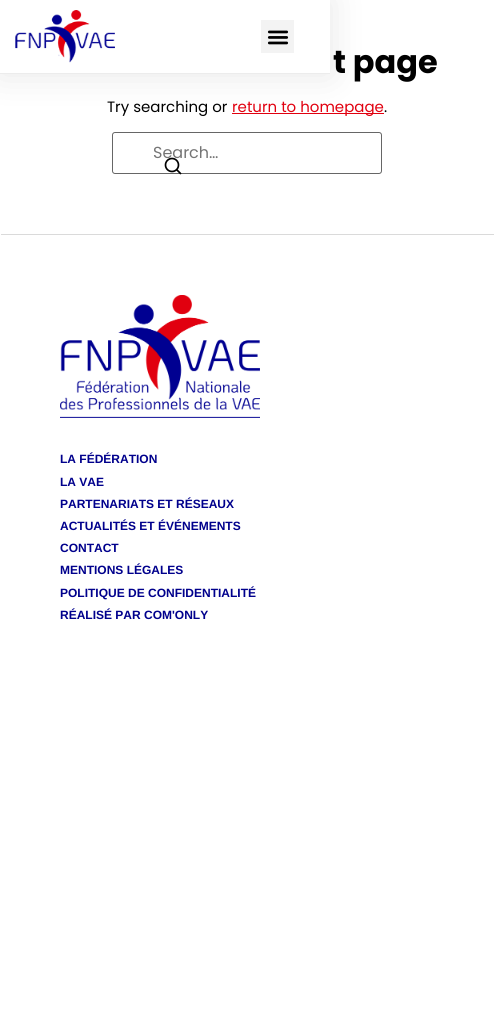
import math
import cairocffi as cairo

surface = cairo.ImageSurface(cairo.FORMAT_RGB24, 494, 1024)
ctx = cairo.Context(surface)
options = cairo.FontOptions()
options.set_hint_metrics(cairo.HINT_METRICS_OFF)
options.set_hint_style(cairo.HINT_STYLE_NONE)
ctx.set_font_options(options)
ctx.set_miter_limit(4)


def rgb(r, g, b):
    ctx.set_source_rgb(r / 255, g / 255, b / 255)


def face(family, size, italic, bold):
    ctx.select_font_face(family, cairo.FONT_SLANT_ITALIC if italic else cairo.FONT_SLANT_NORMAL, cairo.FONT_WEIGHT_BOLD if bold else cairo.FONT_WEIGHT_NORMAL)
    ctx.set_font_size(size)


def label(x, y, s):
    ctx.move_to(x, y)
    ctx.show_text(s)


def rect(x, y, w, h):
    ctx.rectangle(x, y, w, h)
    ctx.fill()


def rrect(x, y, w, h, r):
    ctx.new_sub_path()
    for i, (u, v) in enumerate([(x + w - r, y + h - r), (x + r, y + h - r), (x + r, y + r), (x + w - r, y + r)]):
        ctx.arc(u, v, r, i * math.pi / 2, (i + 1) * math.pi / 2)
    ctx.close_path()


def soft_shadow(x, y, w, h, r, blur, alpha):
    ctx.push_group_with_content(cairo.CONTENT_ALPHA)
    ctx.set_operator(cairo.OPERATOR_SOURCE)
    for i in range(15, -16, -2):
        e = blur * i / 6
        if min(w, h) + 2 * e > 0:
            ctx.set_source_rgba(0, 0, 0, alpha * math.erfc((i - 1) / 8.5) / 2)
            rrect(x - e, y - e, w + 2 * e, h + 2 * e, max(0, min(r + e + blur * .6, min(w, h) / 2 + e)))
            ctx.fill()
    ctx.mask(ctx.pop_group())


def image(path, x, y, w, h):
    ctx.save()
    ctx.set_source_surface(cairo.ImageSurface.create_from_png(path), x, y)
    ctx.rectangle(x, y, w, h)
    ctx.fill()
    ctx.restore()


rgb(255, 255, 255)
ctx.paint()
rgb(225, 0, 15)
rect(232, 113, 152, 1)
ctx.save()
ctx.set_fill_rule(cairo.FILL_RULE_EVEN_ODD)
ctx.new_path()
ctx.move_to(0, 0)
ctx.line_to(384, 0)
ctx.line_to(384, 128)
ctx.line_to(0, 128)
ctx.close_path()
ctx.move_to(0, 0)
ctx.line_to(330, 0)
ctx.line_to(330, 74)
ctx.line_to(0, 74)
ctx.close_path()
ctx.clip()
rgb(0, 0, 0)
soft_shadow(0, 0, 330, 74, 0, 17.5, 0.1)
ctx.restore()
rgb(236, 236, 236)
rect(0, 73, 330, 1)
image('image0.png', 15, 10, 100, 53)
ctx.set_source_rgba(0, 0, 0, 0.05)
rect(261, 20, 33, 33)
image('image1.png', 267, 30, 22, 15)
face('Poppins', 32, 0, 1)
rgb(0, 0, 0)
label(333, 73, 't page')
face('Poppins', 15, 0, 0)
label(107, 112, 'Try searching or')
rgb(225, 0, 15)
label(232, 112, 'return to homepage')
rgb(0, 0, 0)
label(384, 112, '.')
rrect(112.5, 132.5, 269, 41, 2.5)
rgb(102, 102, 102)
ctx.set_line_width(1)
ctx.stroke()
face('Poppins', 16, 0, 0)
rgb(117, 117, 117)
label(153, 158, 'Search…')
ctx.new_path()
ctx.arc(172, 165, 6.5, 0, 2 * math.pi)
rgb(0, 0, 0)
ctx.set_line_width(1.7)
ctx.stroke()
ctx.new_path()
ctx.move_to(180.5, 173.5)
ctx.line_to(177, 170)
ctx.set_line_cap(cairo.LINE_CAP_ROUND)
ctx.set_line_join(cairo.LINE_JOIN_ROUND)
ctx.stroke()
rgb(218, 218, 218)
rect(1, 234, 493, 1)
image('image2.png', 60, 295, 200, 123)
face('Liberation Sans', 12, 0, 1)
rgb(0, 0, 140)
label(60, 463, 'LA FÉDÉRATION')
label(60, 486, 'LA VAE')
label(60, 508, 'PARTENARIATS ET RÉSEAUX')
label(60, 530, 'ACTUALITÉS ET ÉVÉNEMENTS')
label(60, 552, 'CONTACT')
label(60, 574, 'MENTIONS LÉGALES')
label(60, 597, 'POLITIQUE DE CONFIDENTIALITÉ')
label(60, 619, 'RÉALISÉ PAR COM\'ONLY')
surface.write_to_png('render.png')
